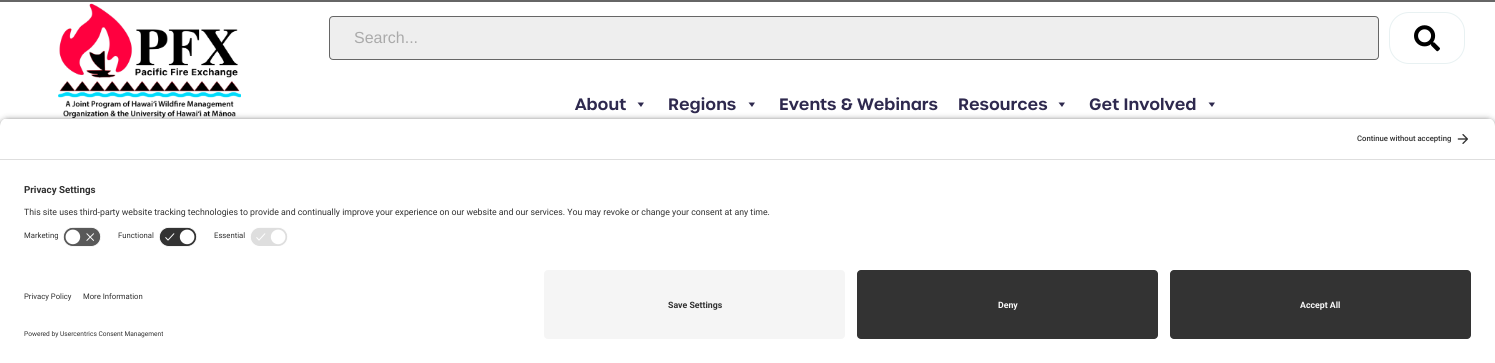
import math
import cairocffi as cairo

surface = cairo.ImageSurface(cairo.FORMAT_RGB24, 1495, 363)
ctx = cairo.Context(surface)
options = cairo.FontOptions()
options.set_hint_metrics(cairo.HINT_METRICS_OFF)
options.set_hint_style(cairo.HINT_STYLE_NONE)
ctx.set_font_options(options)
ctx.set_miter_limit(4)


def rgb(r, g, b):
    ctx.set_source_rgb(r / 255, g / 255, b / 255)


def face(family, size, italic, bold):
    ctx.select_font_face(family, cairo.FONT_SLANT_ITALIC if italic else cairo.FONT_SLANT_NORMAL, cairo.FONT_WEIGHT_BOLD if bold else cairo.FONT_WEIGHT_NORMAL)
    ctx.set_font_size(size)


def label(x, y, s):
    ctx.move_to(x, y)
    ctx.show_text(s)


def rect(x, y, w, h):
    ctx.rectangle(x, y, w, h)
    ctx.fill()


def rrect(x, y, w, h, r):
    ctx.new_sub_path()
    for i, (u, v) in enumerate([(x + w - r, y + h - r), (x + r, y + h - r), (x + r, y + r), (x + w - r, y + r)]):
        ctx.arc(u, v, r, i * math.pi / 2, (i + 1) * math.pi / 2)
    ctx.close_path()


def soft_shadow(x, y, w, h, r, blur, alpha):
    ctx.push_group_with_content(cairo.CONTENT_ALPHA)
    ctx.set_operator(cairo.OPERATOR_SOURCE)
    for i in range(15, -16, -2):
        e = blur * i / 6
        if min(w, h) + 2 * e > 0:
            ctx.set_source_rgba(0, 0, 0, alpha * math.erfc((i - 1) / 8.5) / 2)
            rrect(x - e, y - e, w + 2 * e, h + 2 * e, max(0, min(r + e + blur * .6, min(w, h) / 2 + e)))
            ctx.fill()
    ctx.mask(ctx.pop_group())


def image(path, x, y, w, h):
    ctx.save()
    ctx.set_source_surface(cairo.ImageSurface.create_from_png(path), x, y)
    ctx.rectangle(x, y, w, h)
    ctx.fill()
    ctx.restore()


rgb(102, 102, 102)
ctx.paint()
rgb(255, 255, 255)
rect(0, 2, 1495, 124)
image('image0.png', 58, 3, 183, 116)
rgb(238, 238, 238)
rrect(329.5, 16.5, 1049, 43, 3.5)
ctx.fill_preserve()
rgb(102, 102, 102)
ctx.set_line_width(1)
ctx.stroke()
face('Liberation Sans', 16, 0, 0)
rgb(170, 170, 170)
label(354, 43, 'Search...')
rrect(1389.5, 12.5, 75, 51, 19.5)
rgb(232, 241, 242)
ctx.stroke()
image('image1.png', 1414, 25, 26, 27)
face('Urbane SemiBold', 16, 0, 0)
rgb(46, 41, 78)
label(575, 110, 'About')
ctx.new_path()
ctx.move_to(644, 102.5)
ctx.line_to(641, 107)
ctx.line_to(637.5, 102.5)
ctx.close_path()
ctx.fill()
label(668, 110, 'Regions')
ctx.new_path()
ctx.move_to(755, 102.5)
ctx.line_to(752, 107)
ctx.line_to(748.5, 102.5)
ctx.close_path()
ctx.fill()
label(779, 110, 'Events & Webinars')
label(958, 110, 'Resources')
ctx.new_path()
ctx.move_to(1065, 102.5)
ctx.line_to(1062, 107)
ctx.line_to(1058.5, 102.5)
ctx.close_path()
ctx.fill()
label(1089, 110, 'Get Involved')
ctx.new_path()
ctx.move_to(1215, 102.5)
ctx.line_to(1212, 107)
ctx.line_to(1208.5, 102.5)
ctx.close_path()
ctx.fill()
rgb(0, 0, 0)
soft_shadow(0, 121, 1495, 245, 8, 3.5, 0.8)
ctx.save()
ctx.new_path()
ctx.move_to(8, 118)
ctx.line_to(1487, 118)
ctx.curve_to(1491.5, 118, 1495, 121.5, 1495, 126)
ctx.line_to(1495, 262)
ctx.line_to(0, 262)
ctx.line_to(0, 126)
ctx.curve_to(0, 121.5, 3.5, 118, 8, 118)
ctx.close_path()
ctx.clip()
rgb(255, 255, 255)
rect(0, 119, 1495, 40)
ctx.restore()
rgb(222, 222, 222)
rect(0, 159, 1495, 1)
face('Roboto Medium', 7.7, 0, 0)
rgb(48, 48, 48)
label(1357, 141, 'Continue without accepting')
image('image2.png', 1457, 134, 11, 10)
rgb(255, 255, 255)
rect(0, 160, 1495, 203)
face('Roboto', 9.75, 0, 1)
rgb(48, 48, 48)
label(24, 193, 'Privacy Settings')
face('Roboto', 8.75, 0, 0)
label(24, 215, 'This site uses third-party website tracking technologies to provide and continually improve your experience on our website and our services. You may revoke or change your consent at any time.')
face('Roboto', 7.7, 0, 0)
label(24, 238, 'Marketing')
image('image3.png', 63, 227, 38, 20)
label(118, 238, 'Functional')
image('image4.png', 159, 227, 38, 20)
label(214, 238, 'Essential')
image('image5.png', 250, 227, 38, 19)
label(24, 299, 'Privacy Policy')
label(83, 299, 'More Information')
face('Roboto', 6.6, 0, 0)
label(24, 336, 'Powered by Usercentrics Consent Management')
rgb(245, 245, 245)
rrect(544, 270, 301, 69, 4)
ctx.fill()
face('Roboto', 8.75, 0, 1)
rgb(48, 48, 48)
label(668, 308, 'Save Settings')
rgb(51, 51, 51)
rrect(857, 270, 301, 69, 4)
ctx.fill()
rgb(250, 250, 250)
label(998, 308, 'Deny')
rgb(51, 51, 51)
rrect(1170, 270, 301, 69, 4)
ctx.fill()
rgb(250, 250, 250)
label(1300, 308, 'Accept All')
surface.write_to_png('render.png')
